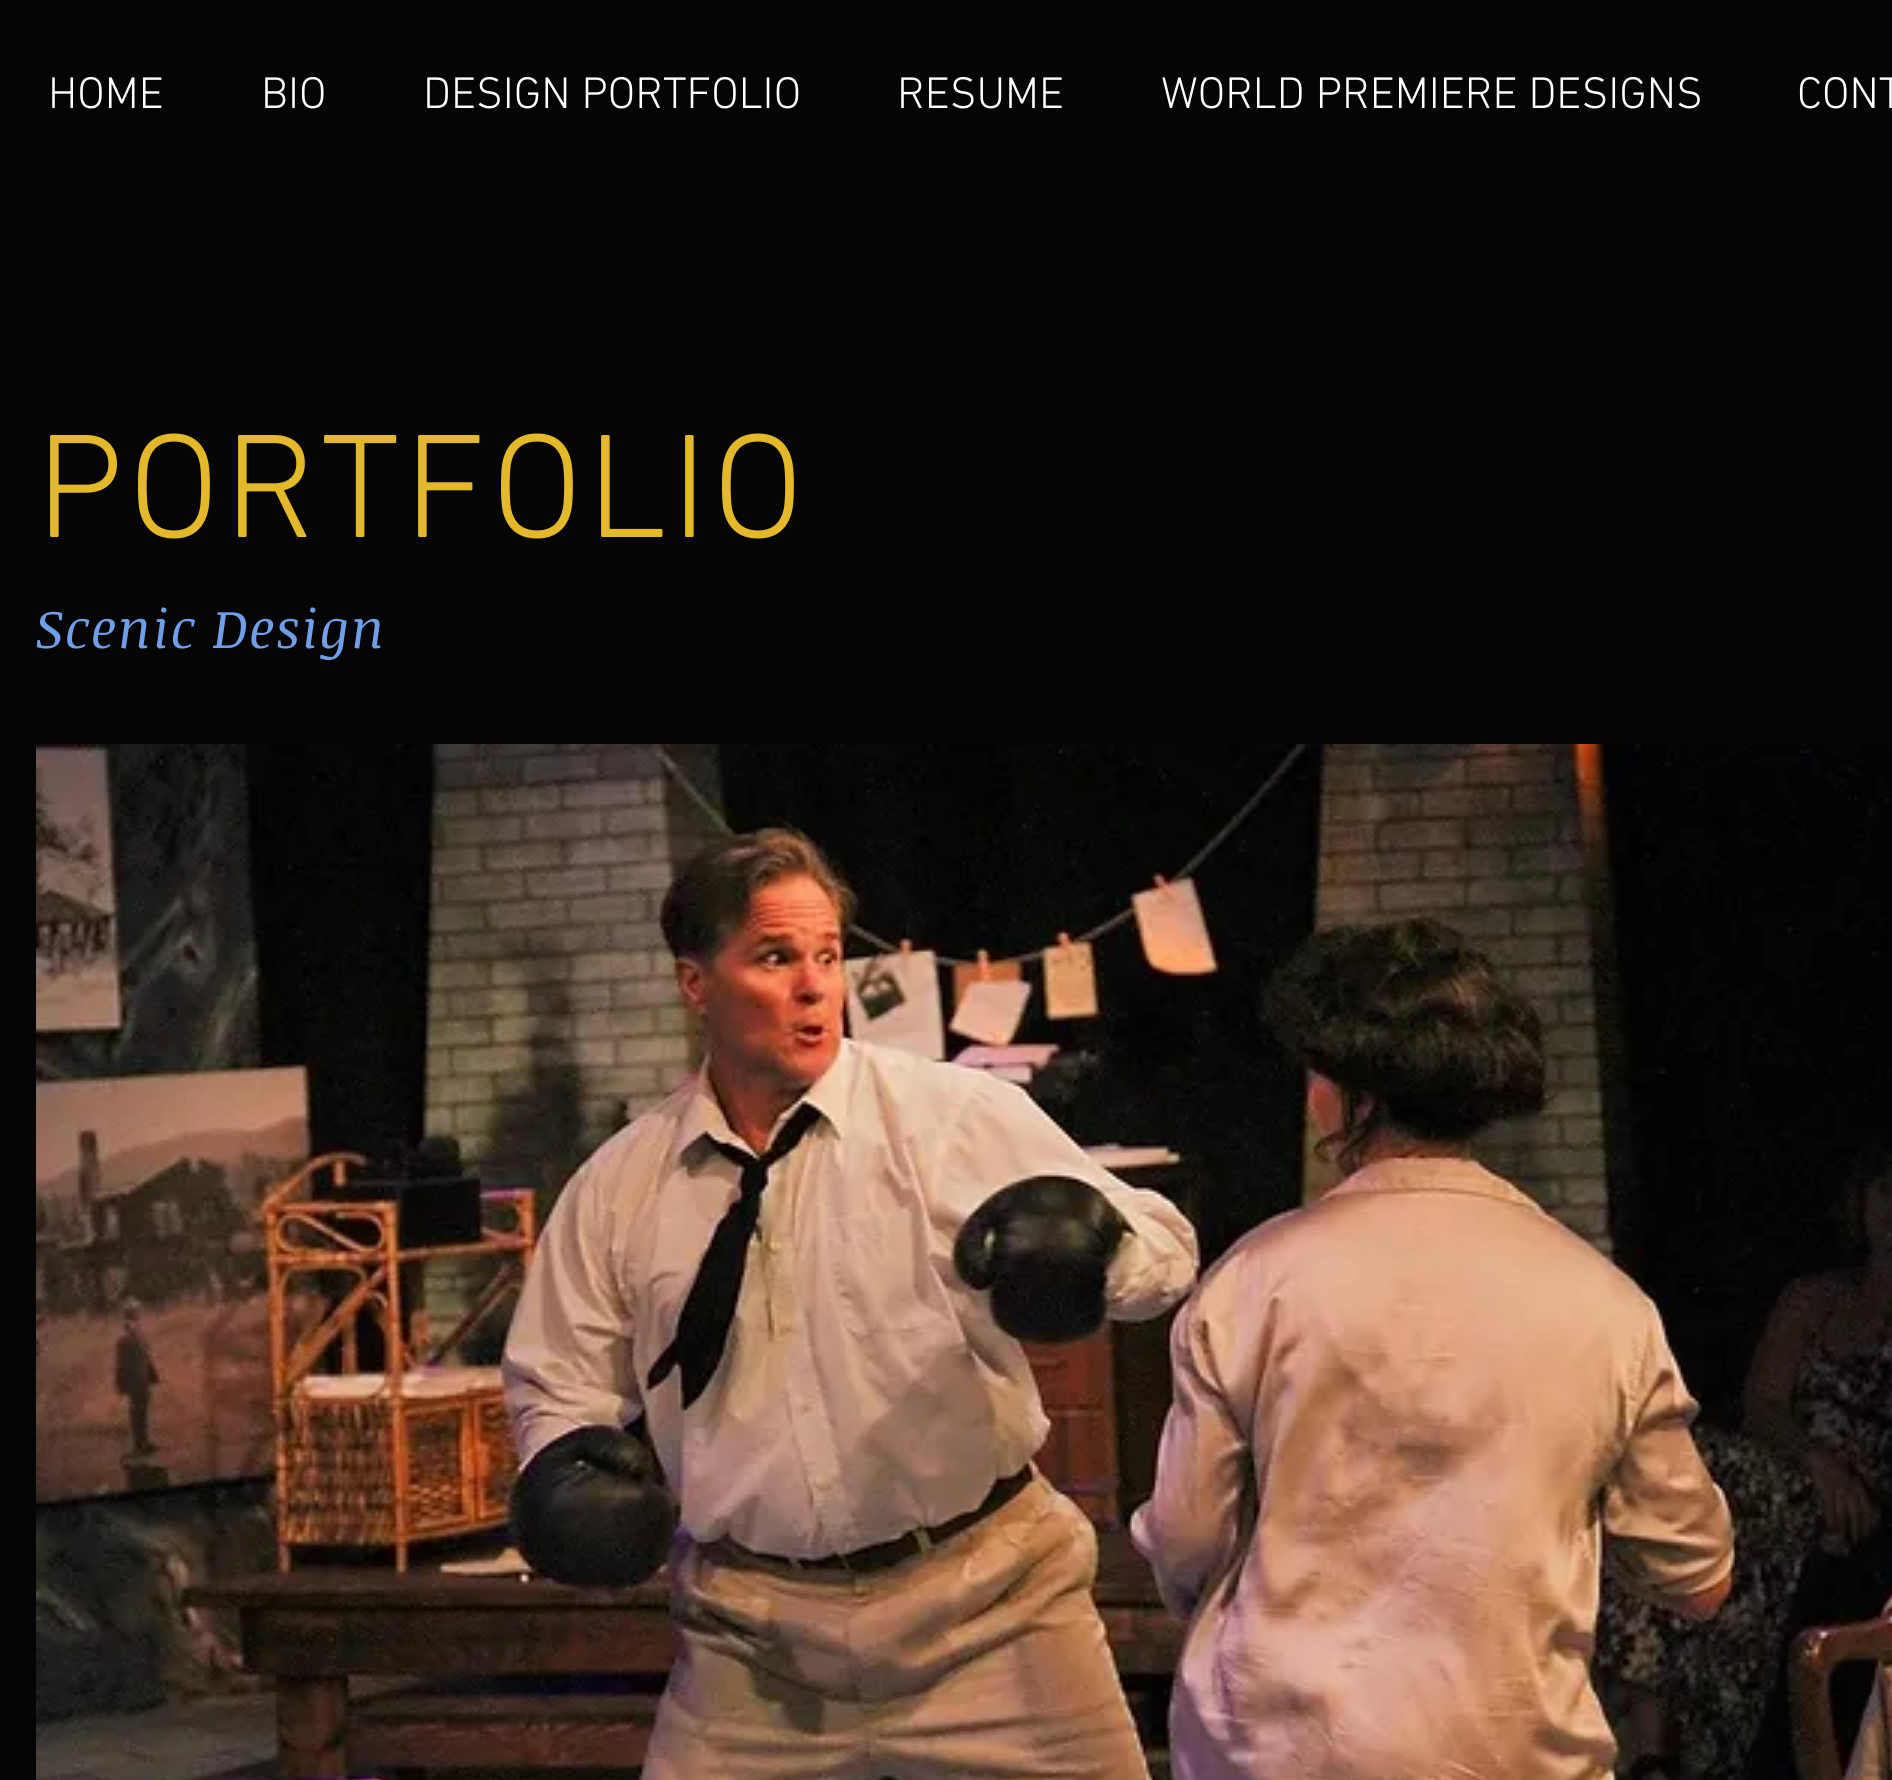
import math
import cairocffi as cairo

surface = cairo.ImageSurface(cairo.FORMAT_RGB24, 1892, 1780)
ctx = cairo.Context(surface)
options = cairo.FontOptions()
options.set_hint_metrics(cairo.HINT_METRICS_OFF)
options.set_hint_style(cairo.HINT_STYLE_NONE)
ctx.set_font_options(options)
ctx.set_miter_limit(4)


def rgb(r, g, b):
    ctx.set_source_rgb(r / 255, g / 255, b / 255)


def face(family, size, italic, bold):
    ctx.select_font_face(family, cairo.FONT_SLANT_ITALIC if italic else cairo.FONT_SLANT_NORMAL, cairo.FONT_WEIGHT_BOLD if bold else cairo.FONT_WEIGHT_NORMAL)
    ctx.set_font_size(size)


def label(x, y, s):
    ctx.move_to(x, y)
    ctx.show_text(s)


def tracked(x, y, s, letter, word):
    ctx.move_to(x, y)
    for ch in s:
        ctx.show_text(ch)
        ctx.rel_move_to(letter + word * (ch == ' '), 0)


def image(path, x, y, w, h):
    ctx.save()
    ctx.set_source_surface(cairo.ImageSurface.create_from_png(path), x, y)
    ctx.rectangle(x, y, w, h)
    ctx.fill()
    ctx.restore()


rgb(5, 5, 5)
ctx.paint()
face('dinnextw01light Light', 45, 0, 0)
rgb(255, 255, 255)
label(48, 108, 'HOME')
label(261, 108, 'BIO')
label(423, 108, 'DESIGN PORTFOLIO')
label(897, 108, 'RESUME')
label(1161, 108, 'WORLD PREMIERE DESIGNS')
label(1797, 108, 'CONT')
face('dinnextw01light Light', 150, 0, 0)
rgb(227, 184, 41)
tracked(36, 537, 'PORTFOLIO', 4.5, 0)
face('Noticia Text', 54, 1, 0)
rgb(111, 159, 232)
tracked(36, 648, 'Scenic Design', 1.5, 0)
image('image0.png', 36, 744, 1856, 1036)
surface.write_to_png('render.png')
